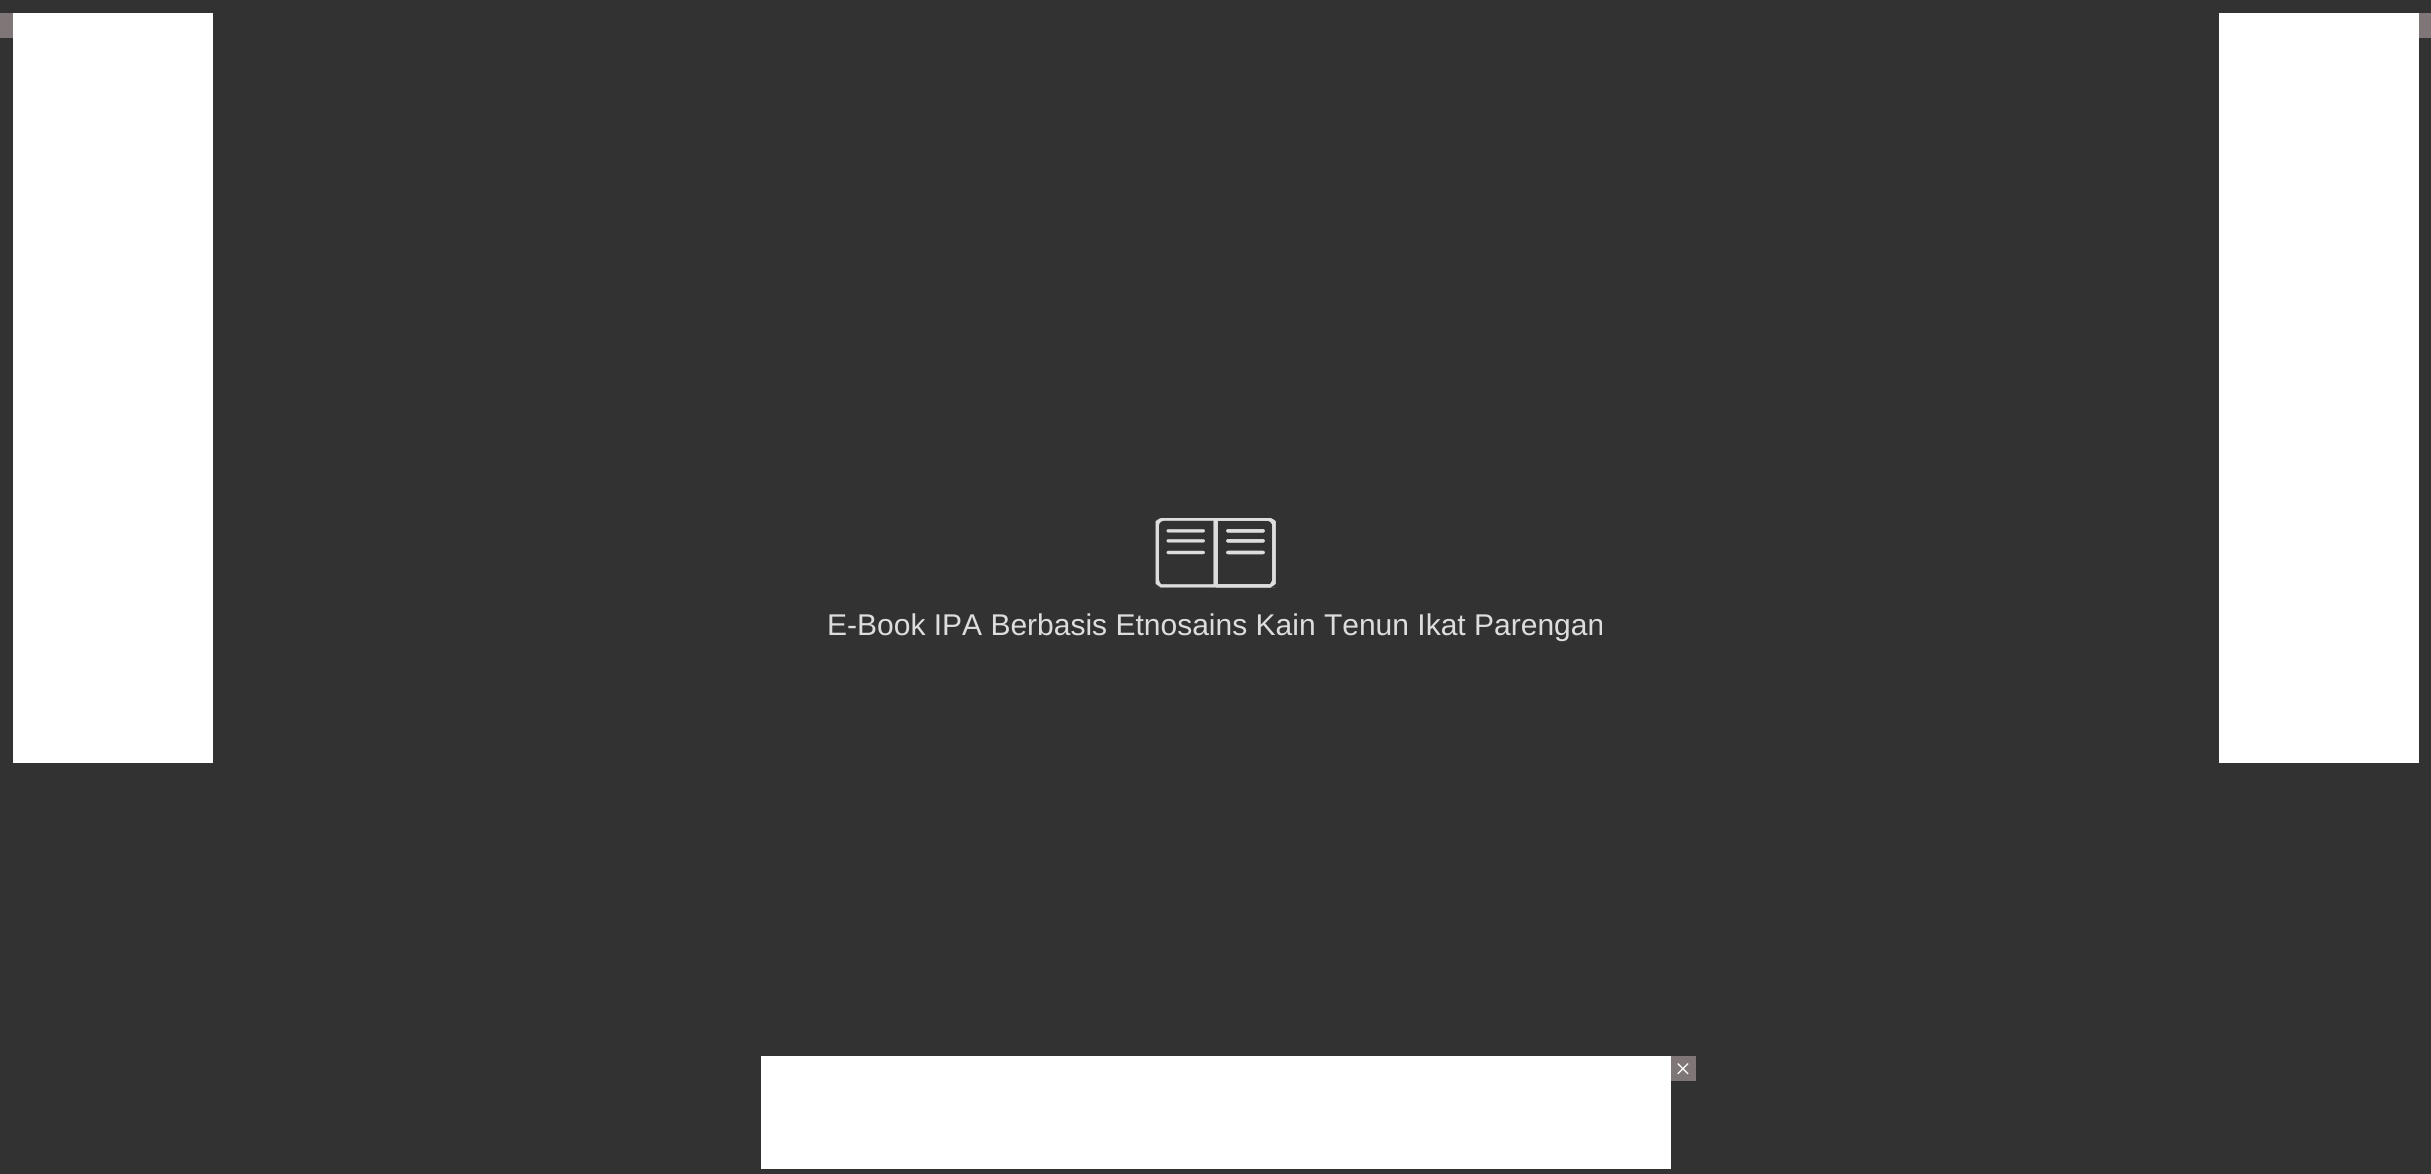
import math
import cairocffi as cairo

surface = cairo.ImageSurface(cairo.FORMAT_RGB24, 2431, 1174)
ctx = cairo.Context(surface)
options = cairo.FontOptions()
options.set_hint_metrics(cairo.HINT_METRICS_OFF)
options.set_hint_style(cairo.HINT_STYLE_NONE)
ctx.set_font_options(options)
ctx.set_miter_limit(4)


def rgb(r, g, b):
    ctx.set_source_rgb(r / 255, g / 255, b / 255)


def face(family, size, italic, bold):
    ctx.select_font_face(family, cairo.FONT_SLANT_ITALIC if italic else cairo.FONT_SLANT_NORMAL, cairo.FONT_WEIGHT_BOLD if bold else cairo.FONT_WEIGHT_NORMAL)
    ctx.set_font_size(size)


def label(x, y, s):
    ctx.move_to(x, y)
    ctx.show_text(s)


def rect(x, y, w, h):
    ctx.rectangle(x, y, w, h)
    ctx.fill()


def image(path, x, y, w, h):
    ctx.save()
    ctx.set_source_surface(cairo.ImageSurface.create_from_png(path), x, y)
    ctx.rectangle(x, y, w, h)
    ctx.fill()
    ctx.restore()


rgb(50, 50, 50)
ctx.paint()
rgb(255, 255, 255)
rect(13, 13, 200, 750)
rgb(127, 119, 119)
rect(0, 13, 13, 25)
image('image0.png', 1155, 518, 61, 70)
image('image1.png', 1216, 518, 60, 70)
image('image2.png', 1216, 518, 60, 70)
face('Liberation Sans', 30, 0, 0)
rgb(221, 221, 221)
label(827, 635, 'E-Book IPA Berbasis Etnosains Kain Tenun Ikat Parengan')
rgb(255, 255, 255)
rect(2219, 13, 200, 750)
rgb(127, 119, 119)
rect(2419, 13, 12, 25)
rgb(255, 255, 255)
rect(761, 1056, 910, 113)
rgb(127, 119, 119)
rect(1671, 1056, 25, 25)
face('Liberation Serif', 28, 0, 0)
rgb(255, 255, 255)
label(1675, 1078, '×')
surface.write_to_png('render.png')
